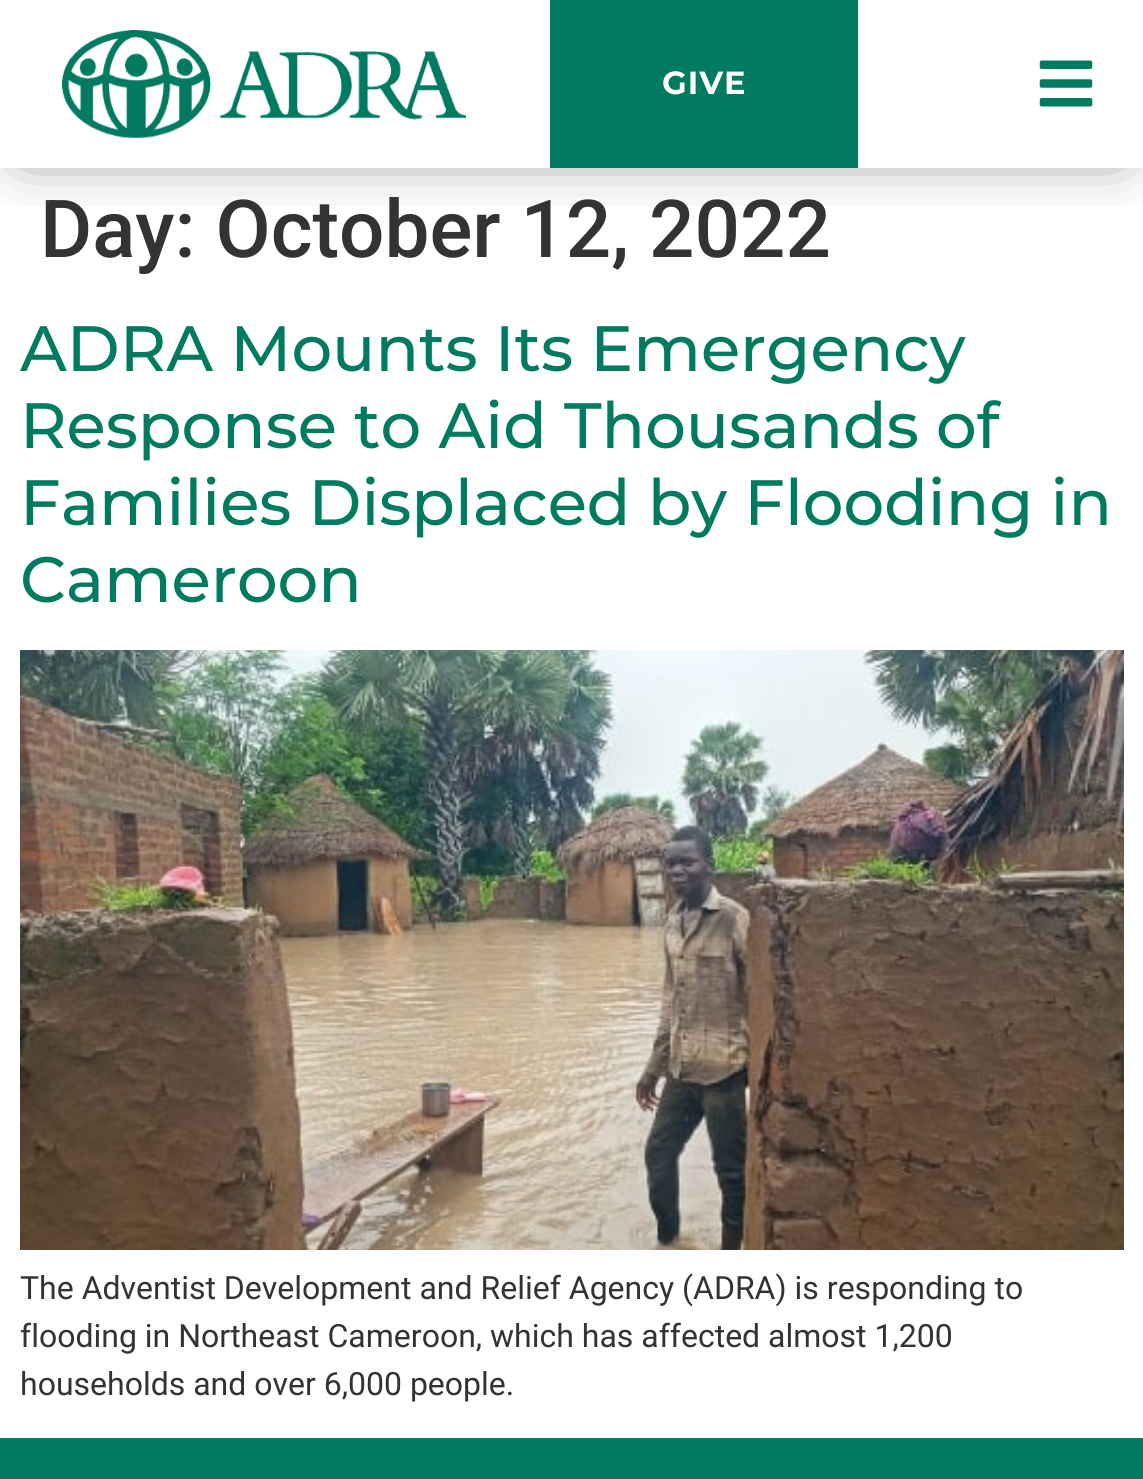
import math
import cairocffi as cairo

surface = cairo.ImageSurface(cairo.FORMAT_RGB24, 1143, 1479)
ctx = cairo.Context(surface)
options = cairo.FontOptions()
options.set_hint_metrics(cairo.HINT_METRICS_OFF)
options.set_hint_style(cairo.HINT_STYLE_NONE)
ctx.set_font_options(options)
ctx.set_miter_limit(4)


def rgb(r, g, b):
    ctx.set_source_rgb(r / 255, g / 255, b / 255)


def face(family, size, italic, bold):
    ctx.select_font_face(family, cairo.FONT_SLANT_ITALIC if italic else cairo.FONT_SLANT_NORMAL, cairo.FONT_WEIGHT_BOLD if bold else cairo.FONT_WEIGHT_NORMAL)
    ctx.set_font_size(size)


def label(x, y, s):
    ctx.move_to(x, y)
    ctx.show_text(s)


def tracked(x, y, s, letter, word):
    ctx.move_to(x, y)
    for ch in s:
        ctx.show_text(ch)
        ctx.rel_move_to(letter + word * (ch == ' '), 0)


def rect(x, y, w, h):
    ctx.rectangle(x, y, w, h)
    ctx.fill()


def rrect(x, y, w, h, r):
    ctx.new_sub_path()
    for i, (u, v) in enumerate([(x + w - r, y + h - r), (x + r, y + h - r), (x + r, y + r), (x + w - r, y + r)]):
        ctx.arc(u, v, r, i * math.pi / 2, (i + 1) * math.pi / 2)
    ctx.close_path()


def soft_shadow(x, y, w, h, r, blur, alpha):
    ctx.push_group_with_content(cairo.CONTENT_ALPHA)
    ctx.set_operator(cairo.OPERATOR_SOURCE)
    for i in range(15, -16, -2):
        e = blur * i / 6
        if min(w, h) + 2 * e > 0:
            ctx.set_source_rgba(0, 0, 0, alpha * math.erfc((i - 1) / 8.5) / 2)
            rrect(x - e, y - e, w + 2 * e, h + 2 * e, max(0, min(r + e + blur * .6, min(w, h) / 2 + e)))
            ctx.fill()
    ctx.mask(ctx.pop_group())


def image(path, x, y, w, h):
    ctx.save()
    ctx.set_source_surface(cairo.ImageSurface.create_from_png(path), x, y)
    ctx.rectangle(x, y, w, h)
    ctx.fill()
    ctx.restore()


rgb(255, 255, 255)
ctx.paint()
ctx.save()
ctx.rectangle(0, 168, 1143, 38)
ctx.clip()
rgb(0, 0, 0)
soft_shadow(24, 30, 1096, 120, 0, 31, 0.58)
ctx.restore()
image('image0.png', 62, 30, 404, 108)
rgb(0, 123, 95)
rect(550, 0, 308, 168)
face('Montserrat', 32, 0, 1)
rgb(255, 255, 255)
tracked(662, 94, 'GIVE', 1, 0)
image('image1.png', 1039, 60, 54, 47)
face('Roboto Medium', 80, 0, 0)
rgb(51, 51, 51)
label(40, 257, 'Day: October 12, 2022')
face('Montserrat Medium', 64, 0, 0)
rgb(0, 123, 95)
label(20, 371, 'ADRA Mounts Its Emergency')
label(20, 448, 'Response to Aid Thousands of')
label(20, 525, 'Families Displaced by Flooding in')
label(20, 602, 'Cameroon')
image('image2.png', 20, 650, 1104, 600)
face('Roboto', 32, 0, 0)
rgb(51, 51, 51)
label(20, 1299, 'The Adventist Development and Relief Agency (ADRA) is responding to')
label(20, 1347, 'flooding in Northeast Cameroon, which has affected almost 1,200')
label(20, 1395, 'households and over 6,000 people.')
rgb(0, 123, 95)
rect(0, 1438, 1143, 41)
surface.write_to_png('render.png')
